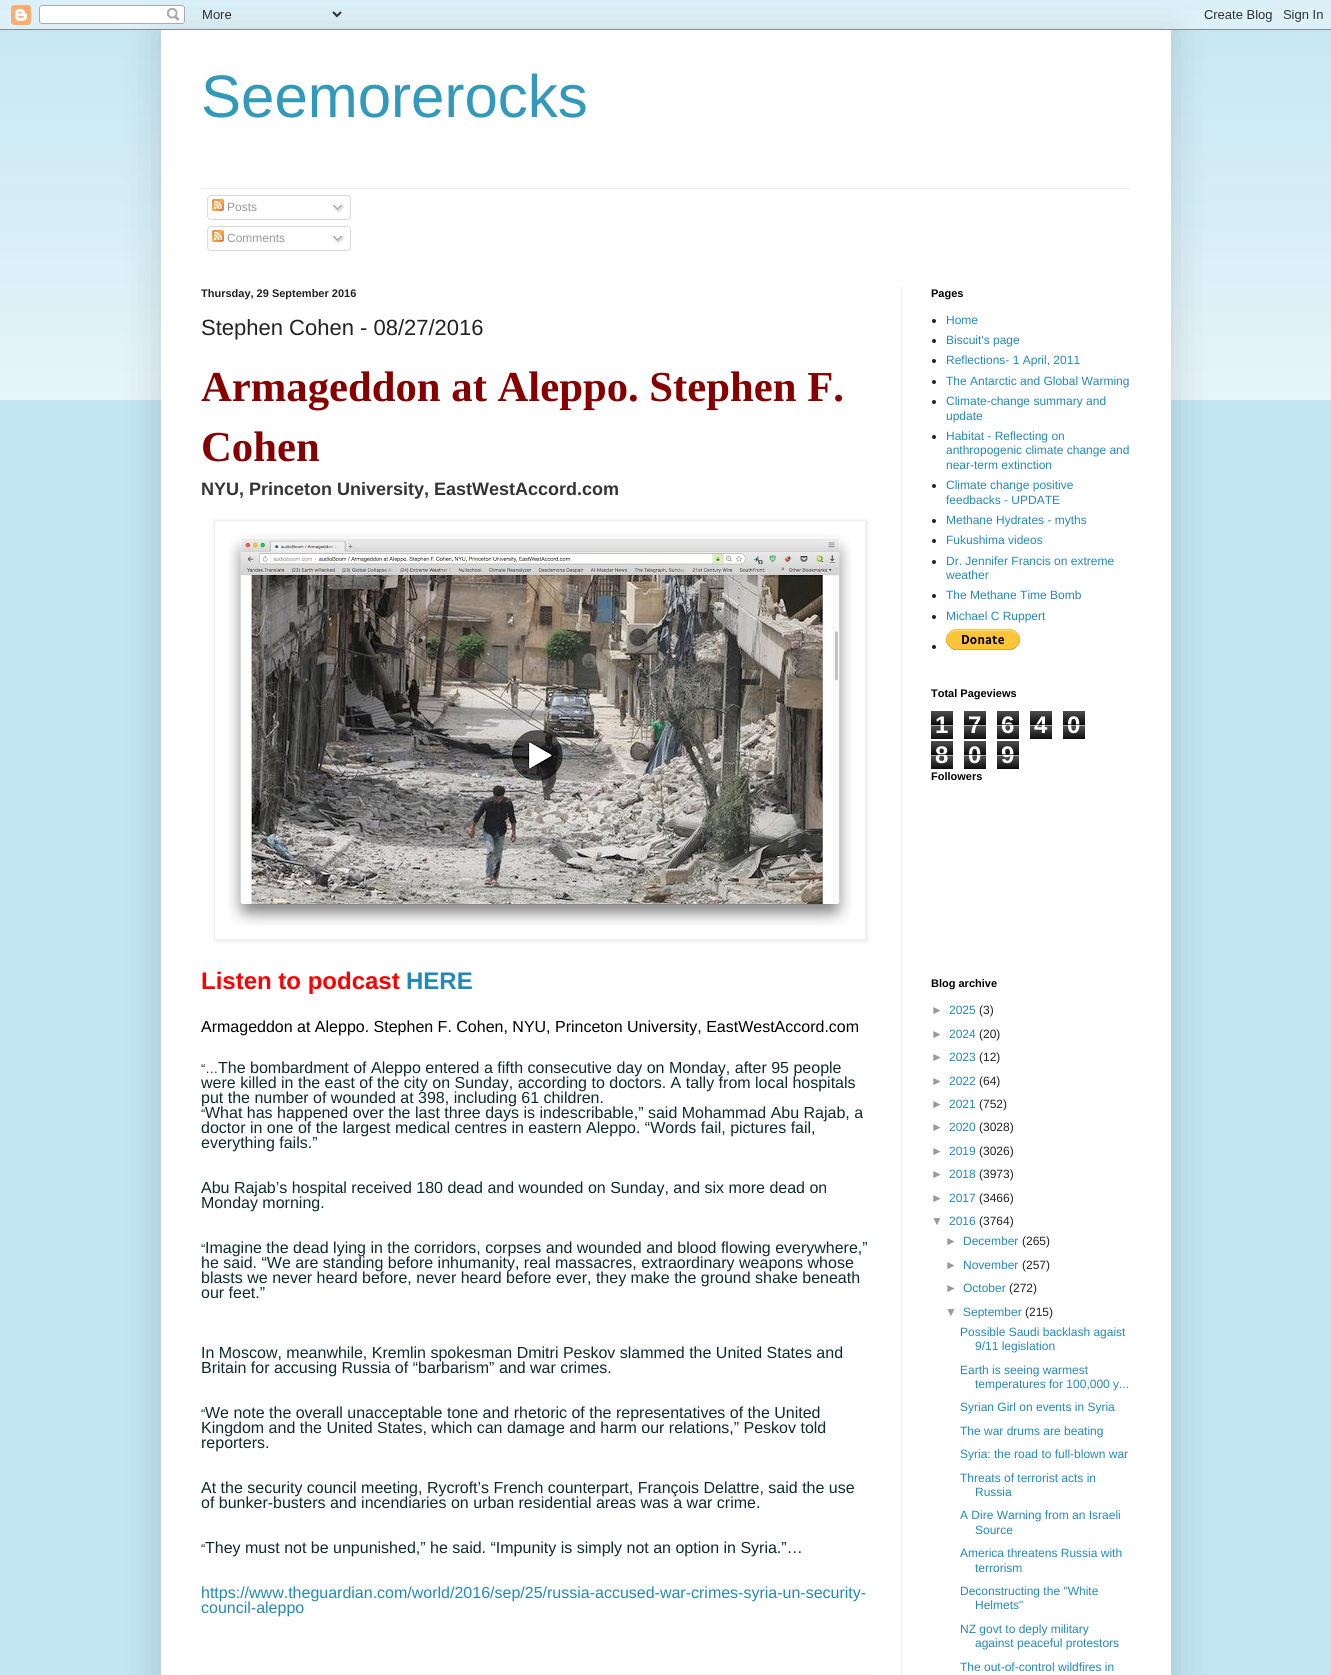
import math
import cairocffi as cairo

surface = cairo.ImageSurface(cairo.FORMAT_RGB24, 1331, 1675)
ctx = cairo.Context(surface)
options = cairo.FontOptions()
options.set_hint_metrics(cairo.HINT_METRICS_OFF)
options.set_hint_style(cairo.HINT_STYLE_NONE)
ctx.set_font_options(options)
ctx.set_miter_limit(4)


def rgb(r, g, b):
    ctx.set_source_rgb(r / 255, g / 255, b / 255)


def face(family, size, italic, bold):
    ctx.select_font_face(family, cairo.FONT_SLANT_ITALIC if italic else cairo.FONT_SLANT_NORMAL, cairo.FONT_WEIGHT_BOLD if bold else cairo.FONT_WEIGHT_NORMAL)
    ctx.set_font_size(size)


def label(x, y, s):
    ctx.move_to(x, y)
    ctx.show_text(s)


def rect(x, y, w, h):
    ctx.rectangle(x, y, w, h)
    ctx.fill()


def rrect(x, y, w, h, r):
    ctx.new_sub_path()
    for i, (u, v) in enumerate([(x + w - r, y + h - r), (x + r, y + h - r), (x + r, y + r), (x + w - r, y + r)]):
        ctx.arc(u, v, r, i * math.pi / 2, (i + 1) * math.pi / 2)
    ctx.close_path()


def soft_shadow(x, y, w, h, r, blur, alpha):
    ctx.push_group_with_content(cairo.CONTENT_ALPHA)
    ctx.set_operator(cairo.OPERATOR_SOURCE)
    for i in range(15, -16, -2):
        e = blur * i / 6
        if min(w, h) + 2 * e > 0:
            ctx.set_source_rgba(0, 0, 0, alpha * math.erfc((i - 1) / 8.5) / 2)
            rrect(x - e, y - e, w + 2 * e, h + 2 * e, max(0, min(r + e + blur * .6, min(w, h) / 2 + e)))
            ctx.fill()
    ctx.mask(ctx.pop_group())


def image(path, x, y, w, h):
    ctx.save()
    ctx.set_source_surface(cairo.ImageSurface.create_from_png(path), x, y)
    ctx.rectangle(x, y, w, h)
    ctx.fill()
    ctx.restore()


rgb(193, 229, 242)
ctx.paint()
image('image1.png', 0, 10, 1331, 390)
rgb(0, 0, 0)
soft_shadow(161, 30, 1010, 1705, 0, 20, 0.15)
image('image0.png', 0, 0, 1331, 30)
rgb(255, 255, 255)
rect(161, 30, 1010, 1645)
face('Liberation Sans', 60, 0, 0)
rgb(51, 153, 187)
label(201, 117, 'Seemorerocks')
rgb(238, 238, 238)
rect(201, 188, 930, 1)
image('image2.png', 207, 195, 144, 22)
image('image3.png', 212, 199, 12, 12)
face('Liberation Sans', 12, 0, 0)
rgb(153, 153, 153)
label(227, 211, 'Posts')
image('image4.png', 332, 204, 13, 9)
image('image5.png', 207, 217, 144, 3)
image('image2.png', 207, 226, 144, 22)
image('image3.png', 212, 230, 12, 12)
label(227, 242, 'Comments')
image('image4.png', 332, 235, 13, 9)
image('image5.png', 207, 248, 144, 3)
rgb(238, 238, 238)
rect(901, 287, 1, 1388)
face('Liberation Sans', 11, 0, 1)
rgb(34, 34, 34)
label(201, 297, 'Thursday, 29 September 2016')
face('Liberation Sans', 22, 0, 0)
label(201, 335, 'Stephen Cohen - 08/27/2016')
face('Liberation Serif', 42.7, 0, 1)
rgb(135, 0, 0)
label(201, 401, 'Armageddon at Aleppo. Stephen F.')
label(201, 461, 'Cohen')
face('Liberation Sans', 18, 0, 1)
rgb(52, 52, 52)
label(201, 495, 'NYU, Princeton University, EastWestAccord.com')
ctx.save()
ctx.set_fill_rule(cairo.FILL_RULE_EVEN_ODD)
ctx.new_path()
ctx.move_to(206, 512)
ctx.line_to(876, 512)
ctx.line_to(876, 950)
ctx.line_to(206, 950)
ctx.close_path()
ctx.move_to(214, 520)
ctx.line_to(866, 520)
ctx.line_to(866, 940)
ctx.line_to(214, 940)
ctx.close_path()
ctx.clip()
rgb(0, 0, 0)
soft_shadow(215, 521, 652, 420, 0, 2.5, 0.1)
ctx.restore()
ctx.rectangle(214.5, 520.5, 651, 419)
rgb(238, 238, 238)
ctx.set_line_width(1)
ctx.stroke()
image('image6.png', 229, 534, 622, 392)
face('Liberation Sans', 24, 0, 1)
rgb(255, 0, 0)
label(201, 989, 'Listen to podcast')
rgb(34, 136, 187)
label(406, 989, 'HERE')
face('Liberation Sans', 16, 0, 0)
rgb(0, 0, 0)
label(201, 1032, 'Armageddon at Aleppo. Stephen F. Cohen, NYU, Princeton University, EastWestAccord.com')
face('Liberation Sans', 13, 0, 0)
rgb(14, 44, 44)
label(201, 1073, '“…')
face('Liberation Sans', 16, 0, 0)
label(218, 1073, 'The bombardment of Aleppo entered a fifth consecutive day on Monday, after 95 people')
label(201, 1088, 'were killed in the east of the city on Sunday, according to doctors. A tally from local hospitals')
label(201, 1103, 'put the number of wounded at 398, including 61 children.')
face('Liberation Sans', 13, 0, 0)
label(201, 1118, '“')
face('Liberation Sans', 16, 0, 0)
label(205, 1118, 'What has happened over the last three days is indescribable,” said Mohammad Abu Rajab, a')
label(201, 1133, 'doctor in one of the largest medical centres in eastern Aleppo. “Words fail, pictures fail,')
label(201, 1148, 'everything fails.”')
label(201, 1193, 'Abu Rajab’s hospital received 180 dead and wounded on Sunday, and six more dead on')
label(201, 1208, 'Monday morning.')
face('Liberation Sans', 13, 0, 0)
label(201, 1253, '“')
face('Liberation Sans', 16, 0, 0)
label(205, 1253, 'Imagine the dead lying in the corridors, corpses and wounded and blood flowing everywhere,”')
label(201, 1268, 'he said. “We are standing before inhumanity, real massacres, extraordinary weapons whose')
label(201, 1283, 'blasts we never heard before, never heard before ever, they make the ground shake beneath')
label(201, 1298, 'our feet.”')
label(201, 1358, 'In Moscow, meanwhile, Kremlin spokesman Dmitri Peskov slammed the United States and')
label(201, 1373, 'Britain for accusing Russia of “barbarism” and war crimes.')
face('Liberation Sans', 13, 0, 0)
label(201, 1418, '“')
face('Liberation Sans', 16, 0, 0)
label(205, 1418, 'We note the overall unacceptable tone and rhetoric of the representatives of the United')
label(201, 1433, 'Kingdom and the United States, which can damage and harm our relations,” Peskov told')
label(201, 1448, 'reporters.')
label(201, 1493, 'At the security council meeting, Rycroft’s French counterpart, François Delattre, said the use')
label(201, 1508, 'of bunker-busters and incendiaries on urban residential areas was a war crime.')
face('Liberation Sans', 13, 0, 0)
label(201, 1553, '“')
face('Liberation Sans', 16, 0, 0)
label(205, 1553, 'They must not be unpunished,” he said. “Impunity is simply not an option in Syria.”…')
rgb(34, 136, 187)
label(201, 1598, 'https://www.theguardian.com/world/2016/sep/25/russia-accused-war-crimes-syria-un-security-')
label(201, 1613, 'council-aleppo')
rgb(249, 249, 249)
rect(199, 1673, 674, 2)
face('Liberation Sans', 11, 0, 1)
rgb(0, 0, 0)
label(931, 297, 'Pages')
rgb(34, 34, 34)
ctx.new_path()
ctx.arc(934, 321, 2, 0, 2 * math.pi)
ctx.fill()
face('Liberation Sans', 12, 0, 0)
rgb(34, 136, 187)
label(946, 324, 'Home')
rgb(34, 34, 34)
ctx.new_path()
ctx.arc(934, 341, 2, 0, 2 * math.pi)
ctx.fill()
rgb(34, 136, 187)
label(946, 344, 'Biscuit\'s page')
rgb(34, 34, 34)
ctx.new_path()
ctx.arc(934, 361, 2, 0, 2 * math.pi)
ctx.fill()
rgb(34, 136, 187)
label(946, 364, 'Reflections- 1 April, 2011')
rgb(34, 34, 34)
ctx.new_path()
ctx.arc(934, 382, 2, 0, 2 * math.pi)
ctx.fill()
rgb(34, 136, 187)
label(946, 385, 'The Antarctic and Global Warming')
rgb(34, 34, 34)
ctx.new_path()
ctx.arc(934, 402, 2, 0, 2 * math.pi)
ctx.fill()
rgb(34, 136, 187)
label(946, 405, 'Climate-change summary and')
label(946, 420, 'update')
rgb(34, 34, 34)
ctx.new_path()
ctx.arc(934, 437, 2, 0, 2 * math.pi)
ctx.fill()
rgb(34, 136, 187)
label(946, 440, 'Habitat - Reflecting on')
label(946, 454, 'anthropogenic climate change and')
label(946, 469, 'near-term extinction')
rgb(34, 34, 34)
ctx.new_path()
ctx.arc(934, 486, 2, 0, 2 * math.pi)
ctx.fill()
rgb(34, 136, 187)
label(946, 489, 'Climate change positive')
label(946, 504, 'feedbacks - UPDATE')
rgb(34, 34, 34)
ctx.new_path()
ctx.arc(934, 521, 2, 0, 2 * math.pi)
ctx.fill()
rgb(34, 136, 187)
label(946, 524, 'Methane Hydrates - myths')
rgb(34, 34, 34)
ctx.new_path()
ctx.arc(934, 541, 2, 0, 2 * math.pi)
ctx.fill()
rgb(34, 136, 187)
label(946, 544, 'Fukushima videos')
rgb(34, 34, 34)
ctx.new_path()
ctx.arc(934, 562, 2, 0, 2 * math.pi)
ctx.fill()
rgb(34, 136, 187)
label(946, 565, 'Dr. Jennifer Francis on extreme')
label(946, 579, 'weather')
rgb(34, 34, 34)
ctx.new_path()
ctx.arc(934, 596, 2, 0, 2 * math.pi)
ctx.fill()
rgb(34, 136, 187)
label(946, 599, 'The Methane Time Bomb')
rgb(34, 34, 34)
ctx.new_path()
ctx.arc(934, 617, 2, 0, 2 * math.pi)
ctx.fill()
rgb(34, 136, 187)
label(946, 620, 'Michael C Ruppert')
rgb(34, 34, 34)
ctx.new_path()
ctx.arc(934, 647, 2, 0, 2 * math.pi)
ctx.fill()
image('image7.png', 946, 629, 74, 21)
face('Liberation Sans', 11, 0, 1)
rgb(0, 0, 0)
label(931, 697, 'Total Pageviews')
image('image8.png', 931, 711, 22, 28)
face('Liberation Sans', 24, 0, 1)
rgb(255, 255, 255)
label(935, 733, '1')
ctx.set_source_rgba(0, 0, 0, 0.65)
rect(931, 724, 22, 1)
ctx.set_source_rgba(1, 1, 1, 0.65)
rect(931, 725, 22, 1)
image('image8.png', 964, 711, 22, 28)
rgb(255, 255, 255)
label(968, 733, '7')
ctx.set_source_rgba(0, 0, 0, 0.65)
rect(964, 724, 22, 1)
ctx.set_source_rgba(1, 1, 1, 0.65)
rect(964, 725, 22, 1)
image('image8.png', 997, 711, 22, 28)
rgb(255, 255, 255)
label(1001, 733, '6')
ctx.set_source_rgba(0, 0, 0, 0.65)
rect(997, 724, 22, 1)
ctx.set_source_rgba(1, 1, 1, 0.65)
rect(997, 725, 22, 1)
image('image8.png', 1030, 711, 22, 28)
rgb(255, 255, 255)
label(1034, 733, '4')
ctx.set_source_rgba(0, 0, 0, 0.65)
rect(1030, 724, 22, 1)
ctx.set_source_rgba(1, 1, 1, 0.65)
rect(1030, 725, 22, 1)
image('image8.png', 1063, 711, 22, 28)
rgb(255, 255, 255)
label(1067, 733, '0')
ctx.set_source_rgba(0, 0, 0, 0.65)
rect(1063, 724, 22, 1)
ctx.set_source_rgba(1, 1, 1, 0.65)
rect(1063, 725, 22, 1)
image('image8.png', 931, 741, 22, 28)
rgb(255, 255, 255)
label(935, 763, '8')
ctx.set_source_rgba(0, 0, 0, 0.65)
rect(931, 754, 22, 1)
ctx.set_source_rgba(1, 1, 1, 0.65)
rect(931, 755, 22, 1)
image('image8.png', 964, 741, 22, 28)
rgb(255, 255, 255)
label(968, 763, '0')
ctx.set_source_rgba(0, 0, 0, 0.65)
rect(964, 754, 22, 1)
ctx.set_source_rgba(1, 1, 1, 0.65)
rect(964, 755, 22, 1)
image('image8.png', 997, 741, 22, 28)
rgb(255, 255, 255)
label(1001, 763, '9')
ctx.set_source_rgba(0, 0, 0, 0.65)
rect(997, 754, 22, 1)
ctx.set_source_rgba(1, 1, 1, 0.65)
rect(997, 755, 22, 1)
face('Liberation Sans', 11, 0, 1)
rgb(0, 0, 0)
label(931, 780, 'Followers')
label(931, 987, 'Blog archive')
face('Liberation Sans', 12, 0, 0)
rgb(153, 153, 153)
label(931, 1014, '►')
rgb(34, 136, 187)
label(949, 1014, '2025')
rgb(34, 34, 34)
label(979, 1014, '(3)')
rgb(153, 153, 153)
label(931, 1038, '►')
rgb(34, 136, 187)
label(949, 1038, '2024')
rgb(34, 34, 34)
label(979, 1038, '(20)')
rgb(153, 153, 153)
label(931, 1061, '►')
rgb(34, 136, 187)
label(949, 1061, '2023')
rgb(34, 34, 34)
label(979, 1061, '(12)')
rgb(153, 153, 153)
label(931, 1085, '►')
rgb(34, 136, 187)
label(949, 1085, '2022')
rgb(34, 34, 34)
label(979, 1085, '(64)')
rgb(153, 153, 153)
label(931, 1108, '►')
rgb(34, 136, 187)
label(949, 1108, '2021')
rgb(34, 34, 34)
label(979, 1108, '(752)')
rgb(153, 153, 153)
label(931, 1131, '►')
rgb(34, 136, 187)
label(949, 1131, '2020')
rgb(34, 34, 34)
label(979, 1131, '(3028)')
rgb(153, 153, 153)
label(931, 1155, '►')
rgb(34, 136, 187)
label(949, 1155, '2019')
rgb(34, 34, 34)
label(979, 1155, '(3026)')
rgb(153, 153, 153)
label(931, 1178, '►')
rgb(34, 136, 187)
label(949, 1178, '2018')
rgb(34, 34, 34)
label(979, 1178, '(3973)')
rgb(153, 153, 153)
label(931, 1202, '►')
rgb(34, 136, 187)
label(949, 1202, '2017')
rgb(34, 34, 34)
label(979, 1202, '(3466)')
rgb(153, 153, 153)
label(931, 1225, '▼')
rgb(34, 136, 187)
label(949, 1225, '2016')
rgb(34, 34, 34)
label(979, 1225, '(3764)')
rgb(153, 153, 153)
label(945, 1245, '►')
rgb(34, 136, 187)
label(963, 1245, 'December')
rgb(34, 34, 34)
label(1022, 1245, '(265)')
rgb(153, 153, 153)
label(945, 1269, '►')
rgb(34, 136, 187)
label(963, 1269, 'November')
rgb(34, 34, 34)
label(1022, 1269, '(257)')
rgb(153, 153, 153)
label(945, 1292, '►')
rgb(34, 136, 187)
label(963, 1292, 'October')
rgb(34, 34, 34)
label(1009, 1292, '(272)')
rgb(153, 153, 153)
label(945, 1316, '▼')
rgb(34, 136, 187)
label(963, 1316, 'September')
rgb(34, 34, 34)
label(1025, 1316, '(215)')
rgb(34, 136, 187)
label(960, 1336, 'Possible Saudi backlash agaist')
label(975, 1350, '9/11 legislation')
label(960, 1374, 'Earth is seeing warmest')
label(975, 1388, 'temperatures for 100,000 y...')
label(960, 1411, 'Syrian Girl on events in Syria')
label(960, 1435, 'The war drums are beating')
label(960, 1458, 'Syria: the road to full-blown war')
label(960, 1482, 'Threats of terrorist acts in')
label(975, 1496, 'Russia')
label(960, 1519, 'A Dire Warning from an Israeli')
label(975, 1534, 'Source')
label(960, 1557, 'America threatens Russia with')
label(975, 1572, 'terrorism')
label(960, 1595, 'Deconstructing the "White')
label(975, 1609, 'Helmets"')
label(960, 1633, 'NZ govt to deply military')
label(975, 1647, 'against peaceful protestors')
label(960, 1671, 'The out-of-control wildfires in')
surface.write_to_png('render.png')
